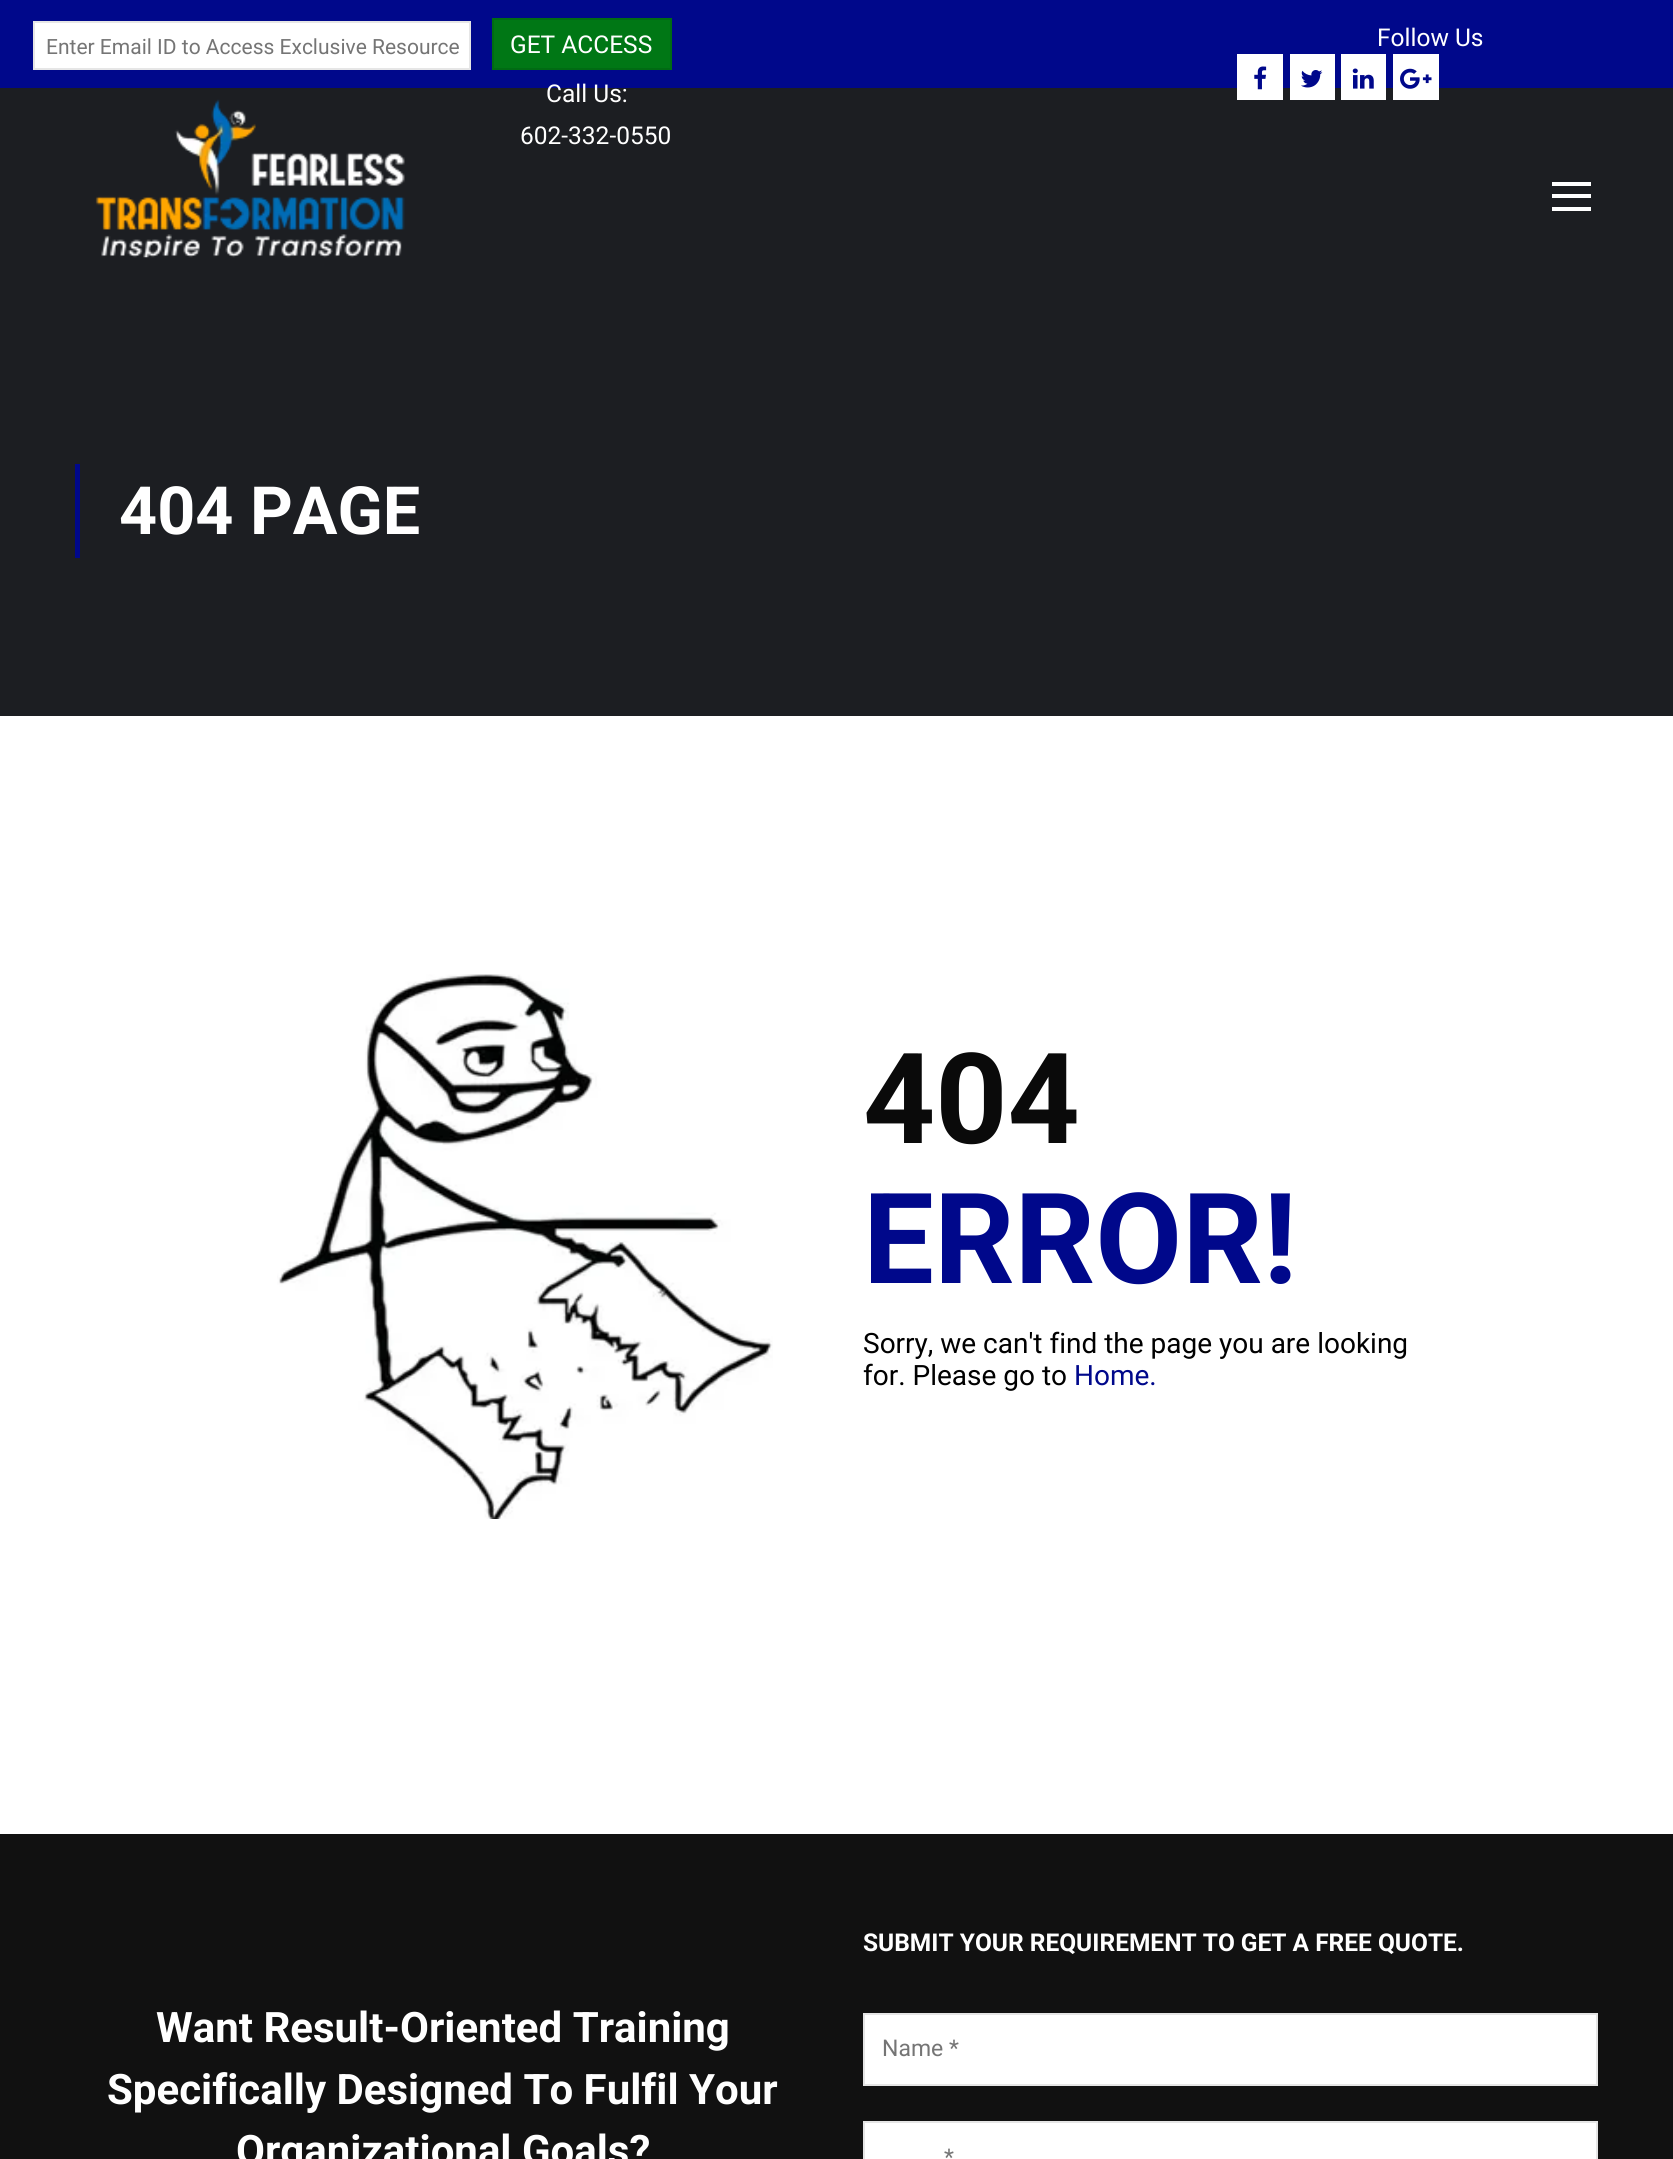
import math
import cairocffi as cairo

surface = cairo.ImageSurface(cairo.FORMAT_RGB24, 1673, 2159)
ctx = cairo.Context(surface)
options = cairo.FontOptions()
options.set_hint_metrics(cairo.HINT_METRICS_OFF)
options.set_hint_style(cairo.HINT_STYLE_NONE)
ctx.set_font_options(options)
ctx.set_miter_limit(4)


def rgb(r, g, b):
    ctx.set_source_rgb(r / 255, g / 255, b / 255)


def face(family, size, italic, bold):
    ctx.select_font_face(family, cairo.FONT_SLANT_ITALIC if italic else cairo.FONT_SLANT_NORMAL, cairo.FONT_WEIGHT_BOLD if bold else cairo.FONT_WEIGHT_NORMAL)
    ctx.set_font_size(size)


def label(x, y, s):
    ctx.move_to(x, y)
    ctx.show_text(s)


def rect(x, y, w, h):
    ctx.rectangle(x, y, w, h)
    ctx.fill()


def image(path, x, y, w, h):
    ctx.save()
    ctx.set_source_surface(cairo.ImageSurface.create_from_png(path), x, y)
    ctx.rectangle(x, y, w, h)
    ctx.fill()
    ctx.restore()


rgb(255, 255, 255)
ctx.paint()
rgb(0, 8, 139)
rect(0, 0, 1673, 88)
rgb(255, 255, 255)
ctx.rectangle(34, 22, 436, 47)
ctx.fill_preserve()
rgb(230, 230, 230)
ctx.stroke()
face('Roboto', 21, 0, 0)
rgb(117, 117, 117)
label(46, 54, 'Enter Email ID to Access Exclusive Resource')
rgb(0, 119, 21)
ctx.rectangle(493, 19, 178, 50)
ctx.fill_preserve()
rgb(0, 107, 19)
ctx.stroke()
face('Roboto', 24.5, 0, 0)
rgb(255, 255, 255)
label(510, 53, 'GET ACCESS')
rgb(28, 30, 34)
rect(0, 88, 1673, 628)
rgb(255, 255, 255)
label(546, 102, 'Call Us:')
label(520, 144, '602-332-0550')
label(1377, 46, 'Follow Us')
rect(1237, 54, 46, 46)
image('image0.png', 1254, 66, 13, 24)
rect(1290, 54, 45, 46)
image('image1.png', 1301, 70, 22, 18)
rect(1341, 54, 45, 46)
image('image2.png', 1352, 68, 22, 21)
rect(1393, 54, 46, 46)
image('image3.png', 1400, 68, 32, 21)
image('image4.png', 95, 99, 310, 159)
rect(1552, 182, 39, 4)
rect(1552, 194, 39, 4)
rect(1552, 207, 39, 4)
rgb(0, 8, 139)
rect(75, 464, 5, 94)
face('Roboto', 66.5, 0, 1)
rgb(255, 255, 255)
label(119, 534, '404 PAGE')
image('image5.png', 277, 974, 496, 545)
face('Roboto', 126, 0, 1)
rgb(10, 10, 10)
label(863, 1143, '404')
rgb(0, 8, 139)
label(863, 1283, 'ERROR!')
face('Roboto', 28, 0, 0)
rgb(0, 0, 0)
label(863, 1353, 'Sorry, we can\'t find the page you are looking')
label(863, 1385, 'for. Please go to')
rgb(0, 8, 139)
label(1074, 1385, 'Home.')
rgb(17, 17, 17)
rect(0, 1834, 1673, 325)
face('Roboto', 42, 0, 1)
rgb(255, 255, 255)
label(156, 2042, 'Want Result-Oriented Training')
label(107, 2104, 'Specifically Designed To Fulfil Your')
label(236, 2165, 'Organizational Goals?')
face('Roboto', 24.5, 0, 1)
label(863, 1951, 'SUBMIT YOUR REQUIREMENT TO GET A FREE QUOTE.')
ctx.rectangle(864, 2014, 733, 71)
ctx.fill_preserve()
rgb(229, 229, 229)
ctx.stroke()
face('Roboto', 23, 0, 0)
rgb(117, 117, 117)
label(882, 2056, 'Name *')
rgb(255, 255, 255)
ctx.rectangle(864, 2122, 733, 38)
ctx.fill_preserve()
rgb(229, 229, 229)
ctx.stroke()
rgb(117, 117, 117)
label(944, 2165, '*')
surface.write_to_png('render.png')
